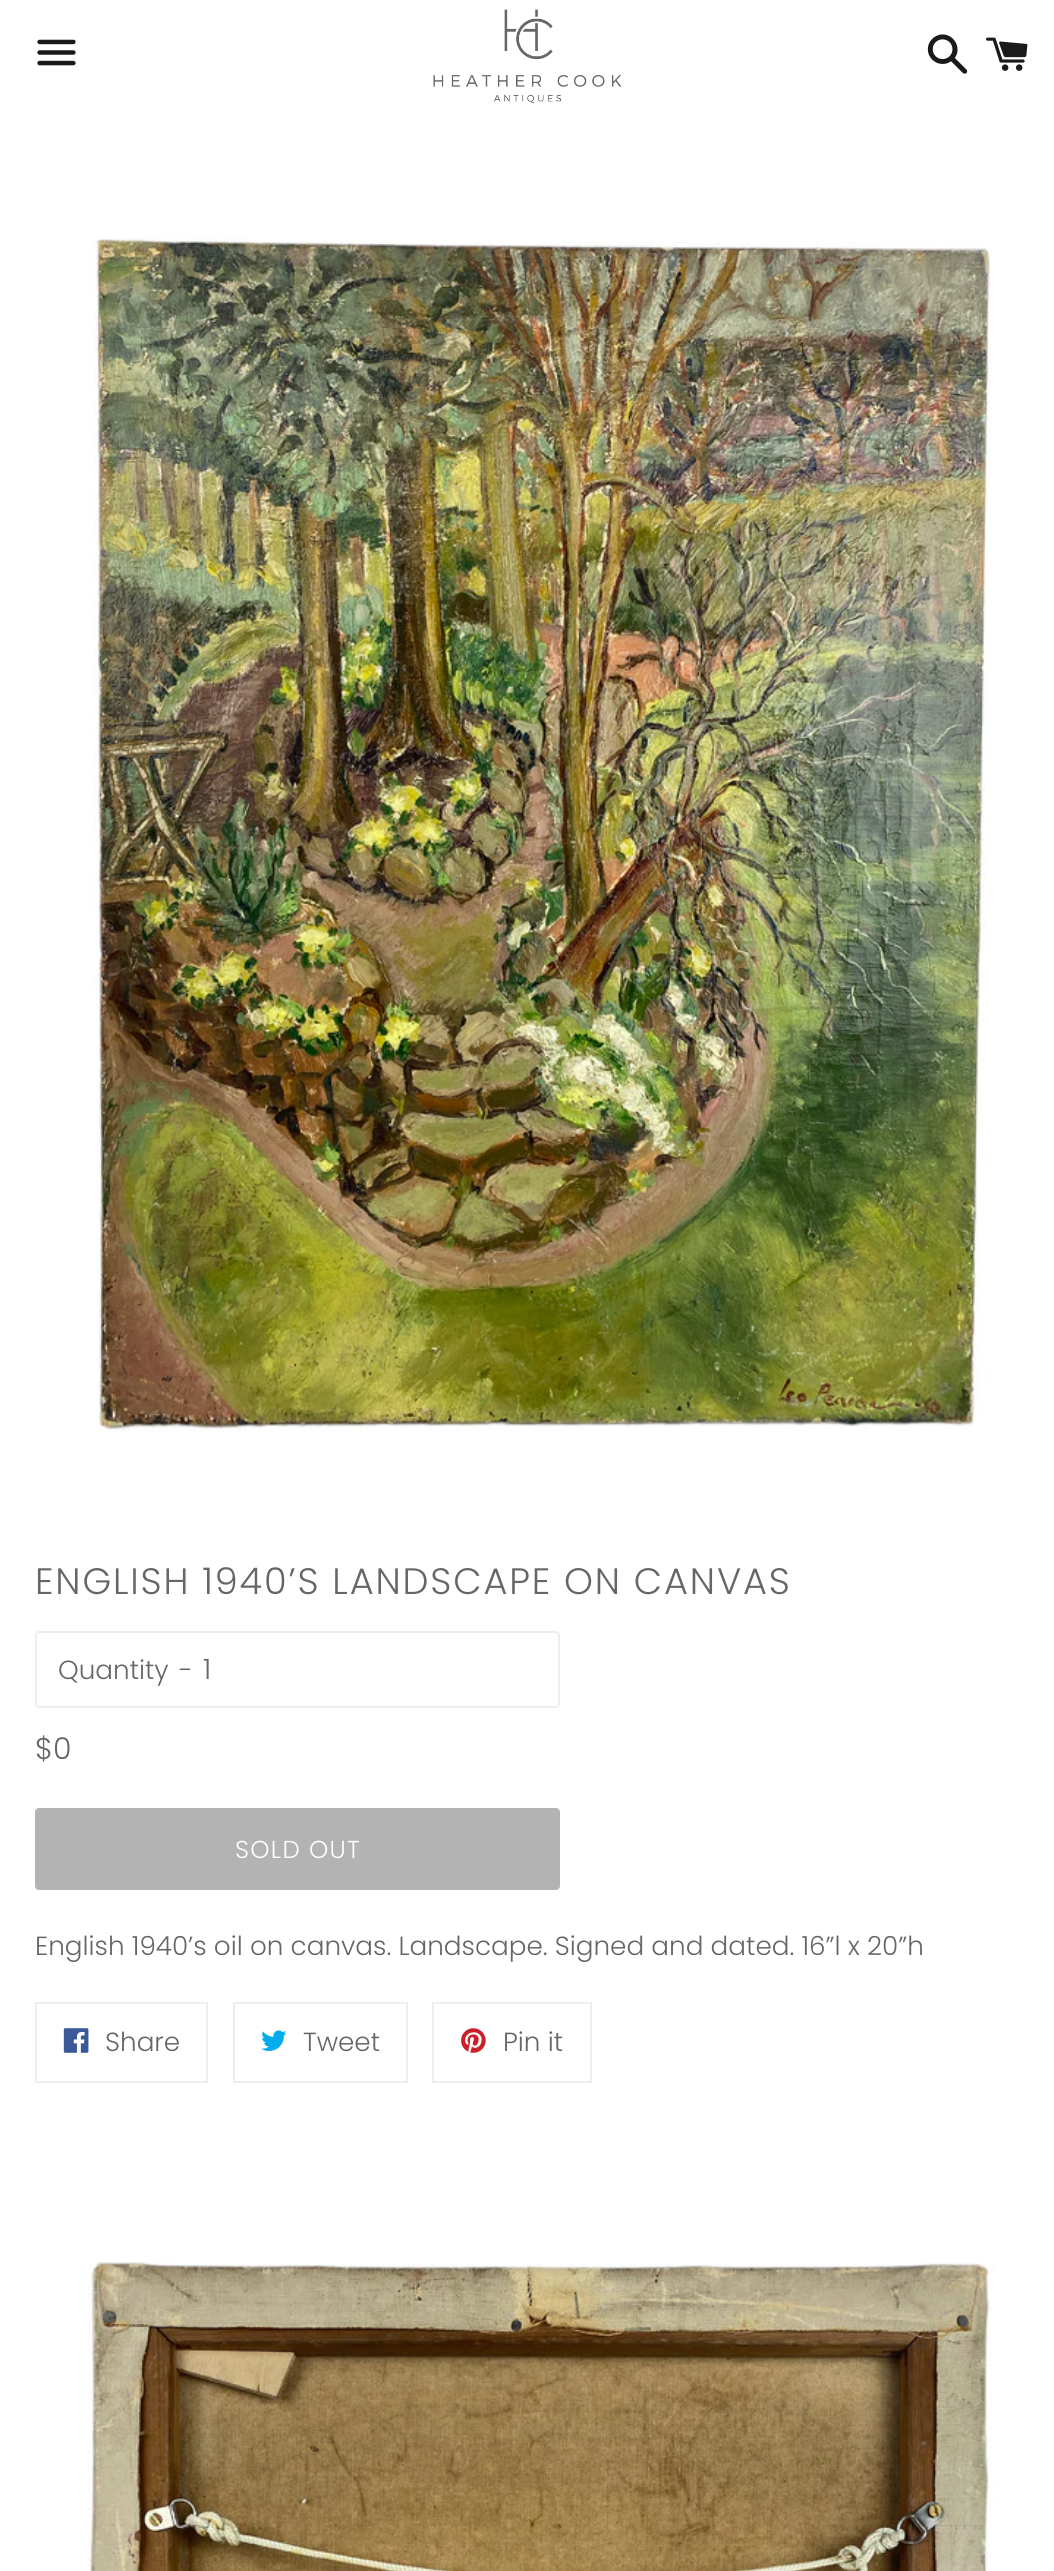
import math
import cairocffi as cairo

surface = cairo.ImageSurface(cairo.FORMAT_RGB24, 1054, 2571)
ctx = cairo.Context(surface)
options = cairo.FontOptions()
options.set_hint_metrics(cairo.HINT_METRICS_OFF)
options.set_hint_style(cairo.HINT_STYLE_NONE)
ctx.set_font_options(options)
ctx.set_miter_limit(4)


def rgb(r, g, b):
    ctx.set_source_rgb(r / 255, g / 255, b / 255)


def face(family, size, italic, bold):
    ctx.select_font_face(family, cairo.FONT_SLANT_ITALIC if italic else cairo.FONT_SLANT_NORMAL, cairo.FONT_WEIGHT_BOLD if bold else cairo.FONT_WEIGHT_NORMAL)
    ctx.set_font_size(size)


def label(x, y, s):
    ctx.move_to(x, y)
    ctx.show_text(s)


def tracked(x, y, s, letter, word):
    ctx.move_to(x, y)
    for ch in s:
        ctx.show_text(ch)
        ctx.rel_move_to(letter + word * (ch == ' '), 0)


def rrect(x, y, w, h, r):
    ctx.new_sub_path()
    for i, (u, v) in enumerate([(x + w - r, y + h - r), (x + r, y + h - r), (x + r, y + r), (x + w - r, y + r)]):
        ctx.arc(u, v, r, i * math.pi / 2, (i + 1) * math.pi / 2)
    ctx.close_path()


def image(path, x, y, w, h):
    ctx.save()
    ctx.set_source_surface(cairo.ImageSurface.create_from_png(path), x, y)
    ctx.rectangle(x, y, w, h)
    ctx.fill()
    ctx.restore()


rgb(255, 255, 255)
ctx.paint()
image('image0.png', 37, 39, 39, 27)
image('image1.png', 433, 9, 189, 94)
image('image2.png', 927, 34, 41, 40)
image('image3.png', 986, 37, 42, 34)
image('image4.png', 94, 237, 897, 1195)
face('Poppins Light', 36.75, 0, 0)
rgb(102, 102, 102)
tracked(35, 1594, 'ENGLISH 1940’S LANDSCAPE ON CANVAS', 1.85, 0)
rrect(36, 1632, 523, 75, 3)
rgb(238, 238, 238)
ctx.stroke()
face('Poppins Light', 26.25, 0, 0)
rgb(102, 102, 102)
label(58, 1679, 'Quantity')
label(179, 1679, '-')
face('Poppins Light', 28, 0, 0)
label(203, 1679, '1')
face('Poppins Light', 30, 0, 0)
label(35, 1759, '$0')
rgb(179, 179, 179)
rrect(37, 1810, 521, 78, 2)
ctx.fill_preserve()
ctx.set_line_width(4)
ctx.stroke()
face('Poppins Light', 24.5, 0, 0)
rgb(255, 255, 255)
tracked(235, 1858, 'SOLD OUT', 1.25, 0)
face('Poppins Light', 26.25, 0, 0)
rgb(102, 102, 102)
label(35, 1955, 'English 1940’s oil on canvas. Landscape. Signed and dated. 16”l x 20”h')
ctx.rectangle(36, 2003, 171, 79)
rgb(238, 238, 238)
ctx.set_line_width(2)
ctx.stroke()
image('image5.png', 63, 2028, 26, 25)
rgb(102, 102, 102)
label(105, 2051, 'Share')
ctx.rectangle(234, 2003, 173, 79)
rgb(238, 238, 238)
ctx.stroke()
image('image6.png', 261, 2030, 26, 21)
rgb(102, 102, 102)
label(303, 2051, 'Tweet')
ctx.rectangle(433, 2003, 158, 79)
rgb(238, 238, 238)
ctx.stroke()
image('image7.png', 461, 2028, 25, 25)
rgb(102, 102, 102)
label(503, 2051, 'Pin it')
image('image8.png', 88, 2262, 907, 309)
surface.write_to_png('render.png')
